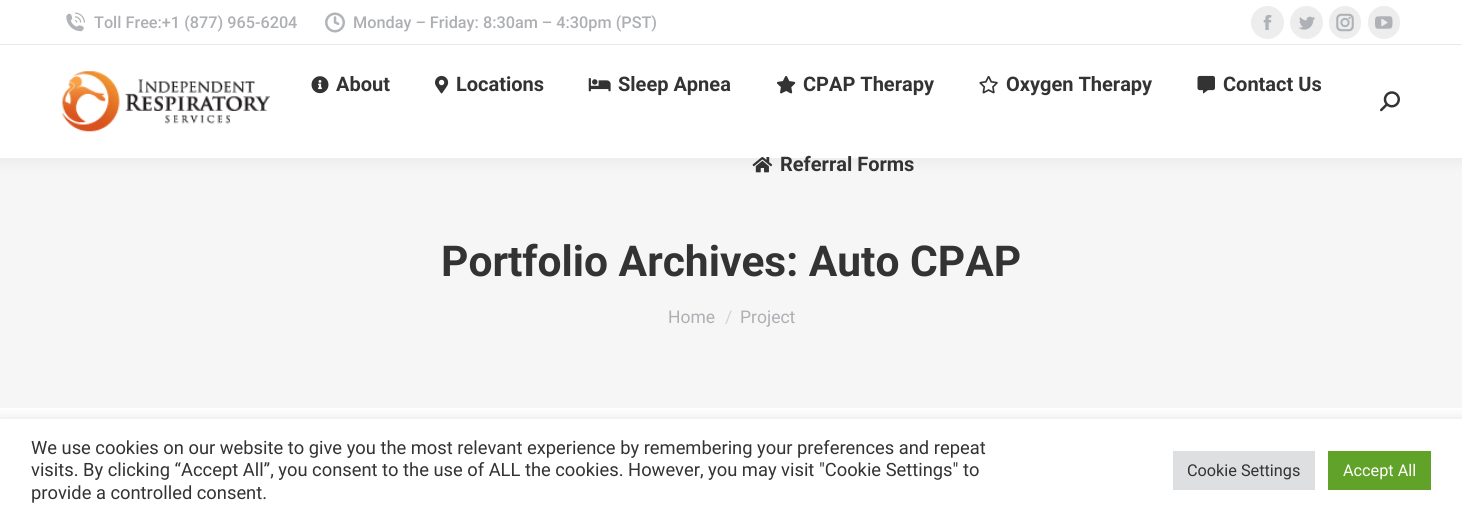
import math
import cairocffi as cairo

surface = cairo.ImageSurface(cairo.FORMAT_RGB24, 1462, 521)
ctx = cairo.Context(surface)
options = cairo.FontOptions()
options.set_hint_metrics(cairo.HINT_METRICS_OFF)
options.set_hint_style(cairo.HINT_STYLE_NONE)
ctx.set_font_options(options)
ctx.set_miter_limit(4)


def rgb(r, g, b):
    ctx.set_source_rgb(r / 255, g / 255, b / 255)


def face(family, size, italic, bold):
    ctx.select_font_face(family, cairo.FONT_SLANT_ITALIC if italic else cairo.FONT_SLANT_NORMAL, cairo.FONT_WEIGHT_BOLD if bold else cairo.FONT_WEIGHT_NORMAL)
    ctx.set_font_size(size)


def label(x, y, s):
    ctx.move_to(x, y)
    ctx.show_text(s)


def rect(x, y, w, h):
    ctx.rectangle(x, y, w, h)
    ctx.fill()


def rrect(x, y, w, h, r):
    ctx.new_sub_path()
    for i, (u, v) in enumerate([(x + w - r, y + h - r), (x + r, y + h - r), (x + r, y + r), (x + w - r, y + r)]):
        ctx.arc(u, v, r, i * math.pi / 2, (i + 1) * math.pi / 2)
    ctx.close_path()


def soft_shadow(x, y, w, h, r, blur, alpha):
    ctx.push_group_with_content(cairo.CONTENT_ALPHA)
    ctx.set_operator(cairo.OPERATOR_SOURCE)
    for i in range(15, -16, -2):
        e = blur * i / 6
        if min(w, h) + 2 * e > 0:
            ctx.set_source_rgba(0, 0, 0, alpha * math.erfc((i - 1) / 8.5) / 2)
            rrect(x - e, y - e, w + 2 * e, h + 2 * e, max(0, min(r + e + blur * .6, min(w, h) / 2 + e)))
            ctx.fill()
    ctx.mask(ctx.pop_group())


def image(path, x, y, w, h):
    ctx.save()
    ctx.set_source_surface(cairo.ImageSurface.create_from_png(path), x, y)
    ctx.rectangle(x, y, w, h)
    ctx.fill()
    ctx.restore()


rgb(255, 255, 255)
ctx.paint()
rgb(246, 246, 246)
rect(0, 158, 1462, 250)
rgb(0, 0, 0)
soft_shadow(-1, -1, 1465, 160, 0, 9.5, 0.07)
rgb(255, 255, 255)
rect(0, 0, 1462, 158)
image('image0.png', 66, 12, 19, 20)
face('Roboto Medium', 16.25, 0, 0)
rgb(173, 175, 179)
label(94, 28, 'Toll Free:+1 (877) 965-6204')
image('image1.png', 325, 12, 20, 21)
label(353, 28, 'Monday – Friday: 8:30am – 4:30pm (PST)')
rgb(237, 237, 237)
ctx.new_path()
ctx.arc(1267.5, 22.5, 16.5, 0, 2 * math.pi)
ctx.fill()
image('image2.png', 1263, 15, 9, 15)
ctx.arc(1306.5, 22.5, 16.5, 0, 2 * math.pi)
ctx.fill()
image('image3.png', 1299, 16, 16, 14)
rrect(1329, 6, 32, 33, 16)
ctx.fill()
image('image4.png', 1336, 13, 18, 19)
rrect(1368, 6, 32, 33, 16)
ctx.fill()
image('image5.png', 1375, 16, 18, 13)
rgb(233, 233, 233)
rect(0, 44, 1462, 1)
image('image6.png', 62, 71, 208, 61)
image('image7.png', 311, 76, 18, 18)
face('Roboto', 20, 0, 1)
rgb(51, 51, 51)
label(336, 91, 'About')
image('image8.png', 435, 75, 14, 19)
label(456, 91, 'Locations')
image('image9.png', 588, 78, 23, 14)
label(618, 91, 'Sleep Apnea')
image('image10.png', 777, 76, 19, 18)
label(803, 91, 'CPAP Therapy')
image('image11.png', 979, 76, 19, 18)
label(1006, 91, 'Oxygen Therapy')
image('image12.png', 1197, 75, 18, 19)
label(1223, 91, 'Contact Us')
image('image13.png', 752, 157, 21, 16)
label(780, 171, 'Referral Forms')
image('image14.png', 1380, 91, 20, 21)
face('Roboto', 42.5, 0, 1)
label(441, 276, 'Portfolio Archives: Auto CPAP')
face('Roboto', 17.5, 0, 0)
rgb(173, 175, 179)
label(668, 323, 'Home')
rgb(210, 211, 213)
label(725, 323, '/')
rgb(173, 175, 179)
label(740, 323, 'Project')
ctx.save()
ctx.rectangle(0, 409, 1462, 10)
ctx.clip()
rgb(172, 171, 171)
soft_shadow(0, 418, 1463, 102, 0, 6, 0.3)
ctx.restore()
face('Roboto', 18.33, 0, 0)
rgb(51, 51, 51)
label(31, 454, 'We use cookies on our website to give you the most relevant experience by remembering your preferences and repeat')
label(31, 476, 'visits. By clicking “Accept All”, you consent to the use of ALL the cookies. However, you may visit "Cookie Settings" to')
label(31, 499, 'provide a controlled consent.')
rgb(222, 223, 224)
rect(1173, 451, 142, 39)
face('Roboto', 16.25, 0, 0)
rgb(51, 51, 51)
label(1187, 476, 'Cookie Settings')
rgb(97, 162, 41)
rect(1328, 451, 103, 39)
rgb(255, 255, 255)
label(1343, 476, 'Accept All')
surface.write_to_png('render.png')
